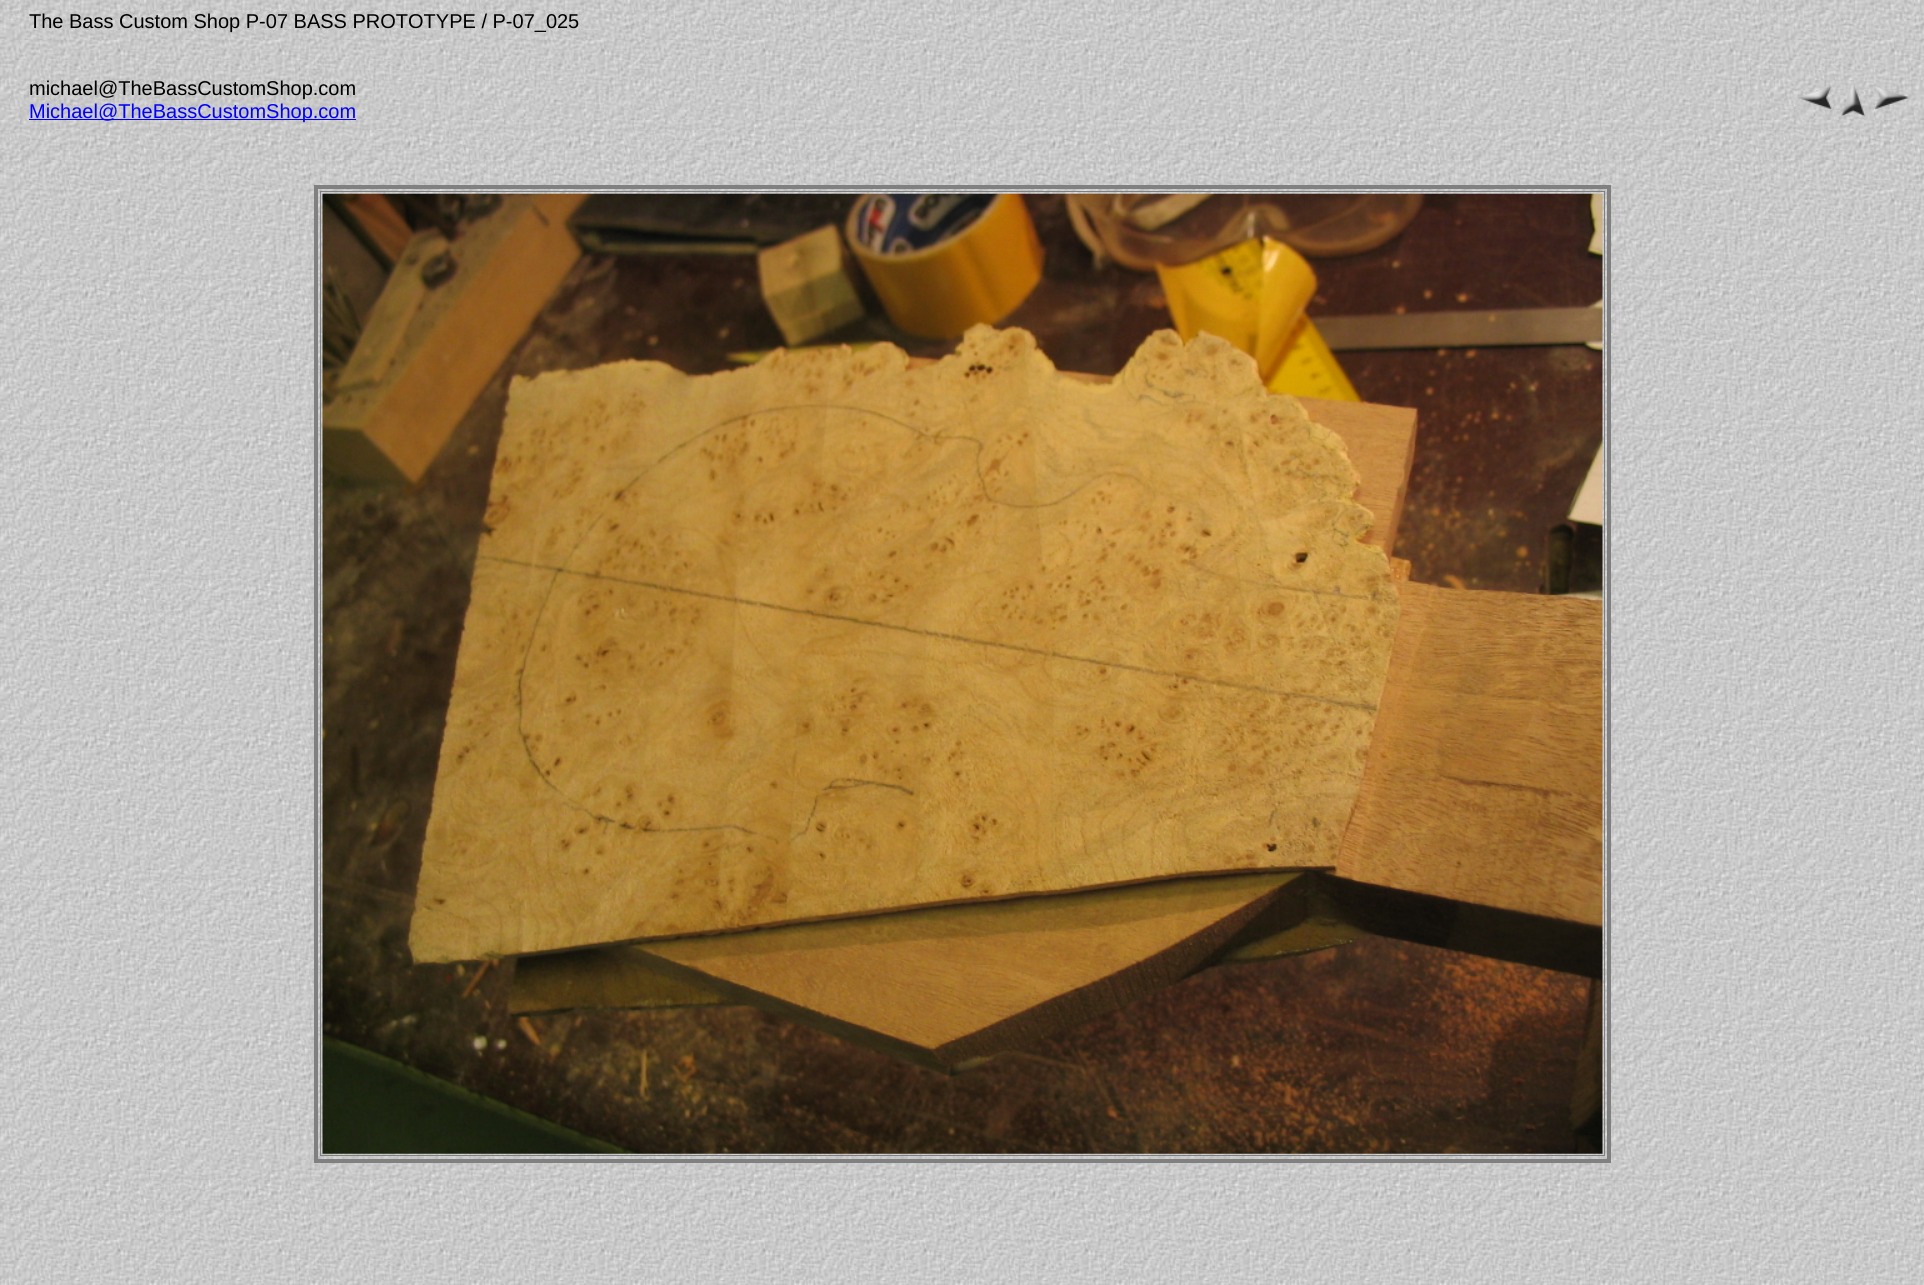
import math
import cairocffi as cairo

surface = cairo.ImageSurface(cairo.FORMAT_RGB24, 1924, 1285)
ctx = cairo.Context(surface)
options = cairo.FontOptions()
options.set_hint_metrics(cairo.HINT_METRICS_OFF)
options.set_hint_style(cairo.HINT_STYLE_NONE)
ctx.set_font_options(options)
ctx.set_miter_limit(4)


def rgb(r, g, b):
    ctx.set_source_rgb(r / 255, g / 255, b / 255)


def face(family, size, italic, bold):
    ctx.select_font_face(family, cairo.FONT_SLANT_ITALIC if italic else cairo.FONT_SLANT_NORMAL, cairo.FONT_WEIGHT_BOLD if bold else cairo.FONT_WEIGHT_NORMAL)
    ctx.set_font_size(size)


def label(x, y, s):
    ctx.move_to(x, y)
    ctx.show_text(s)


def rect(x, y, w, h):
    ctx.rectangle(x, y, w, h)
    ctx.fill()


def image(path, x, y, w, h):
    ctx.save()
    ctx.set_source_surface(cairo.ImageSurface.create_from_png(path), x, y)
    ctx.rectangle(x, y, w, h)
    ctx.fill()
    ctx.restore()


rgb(255, 255, 255)
ctx.paint()
image('image0.png', 0, 0, 1924, 1285)
face('Liberation Sans', 20, 0, 0)
rgb(0, 0, 0)
label(29, 28, 'The Bass Custom Shop P-07 BASS PROTOTYPE / P-07_025')
label(29, 95, 'michael@TheBassCustomShop.com')
rgb(0, 0, 255)
rect(29, 119, 327, 1)
label(29, 118, 'Michael@TheBassCustomShop.com')
image('image1.png', 1798, 86, 34, 24)
image('image2.png', 1841, 82, 24, 35)
image('image3.png', 1875, 86, 34, 24)
ctx.rectangle(316, 187, 1293, 974)
rgb(128, 128, 128)
ctx.set_line_width(4)
ctx.stroke()
ctx.rectangle(320.5, 191.5, 1284, 964)
ctx.set_line_width(1)
ctx.stroke()
image('image4.png', 322, 193, 1281, 961)
surface.write_to_png('render.png')
